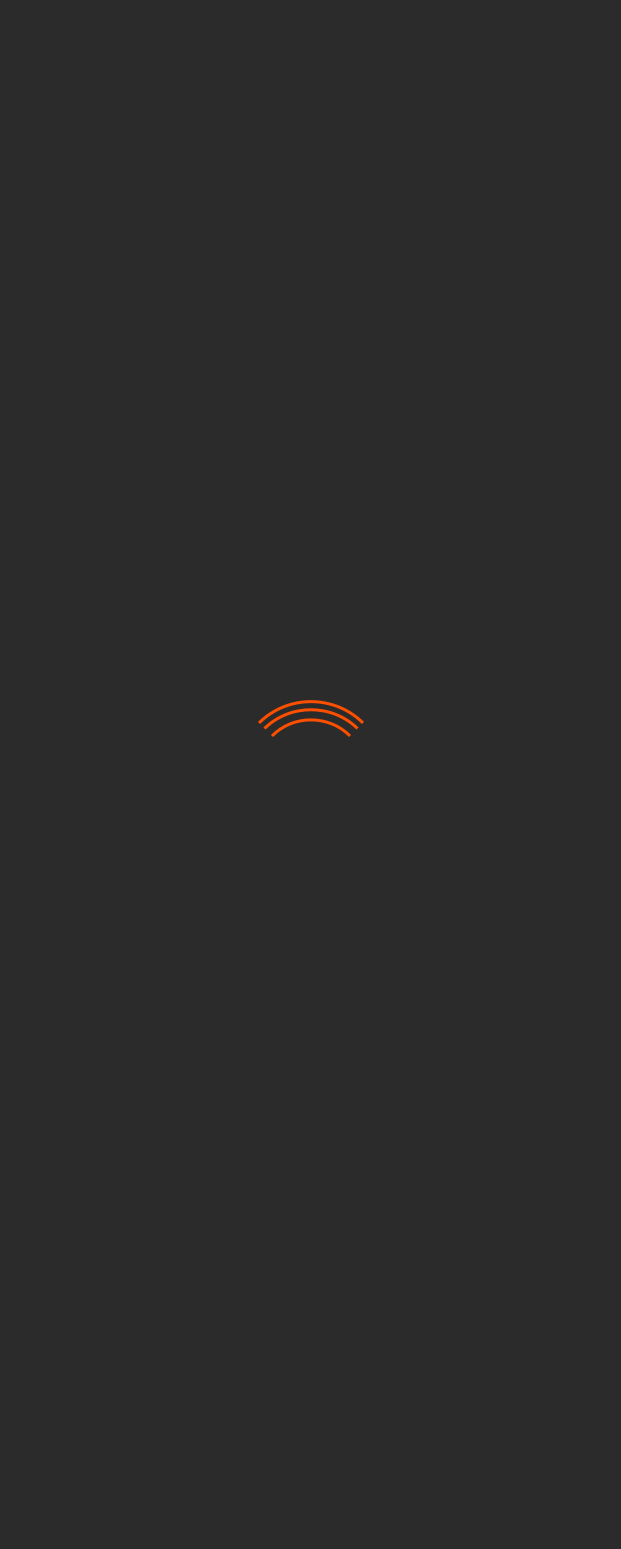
import math
import cairocffi as cairo

surface = cairo.ImageSurface(cairo.FORMAT_RGB24, 621, 1549)
ctx = cairo.Context(surface)
options = cairo.FontOptions()
options.set_hint_metrics(cairo.HINT_METRICS_OFF)
options.set_hint_style(cairo.HINT_STYLE_NONE)
ctx.set_font_options(options)
ctx.set_miter_limit(4)


def rgb(r, g, b):
    ctx.set_source_rgb(r / 255, g / 255, b / 255)


rgb(43, 43, 43)
ctx.paint()
ctx.new_path()
ctx.move_to(259, 723)
ctx.curve_to(287.5, 694.5, 334.5, 694.5, 363, 723)
rgb(253, 79, 0)
ctx.set_line_width(3)
ctx.stroke()
ctx.new_path()
ctx.move_to(264.5, 728.5)
ctx.curve_to(290, 703.5, 332, 703.5, 357.5, 728.5)
ctx.stroke()
ctx.new_path()
ctx.move_to(272, 736)
ctx.curve_to(293, 714.5, 329, 714.5, 350, 736)
ctx.stroke()
surface.write_to_png('render.png')
